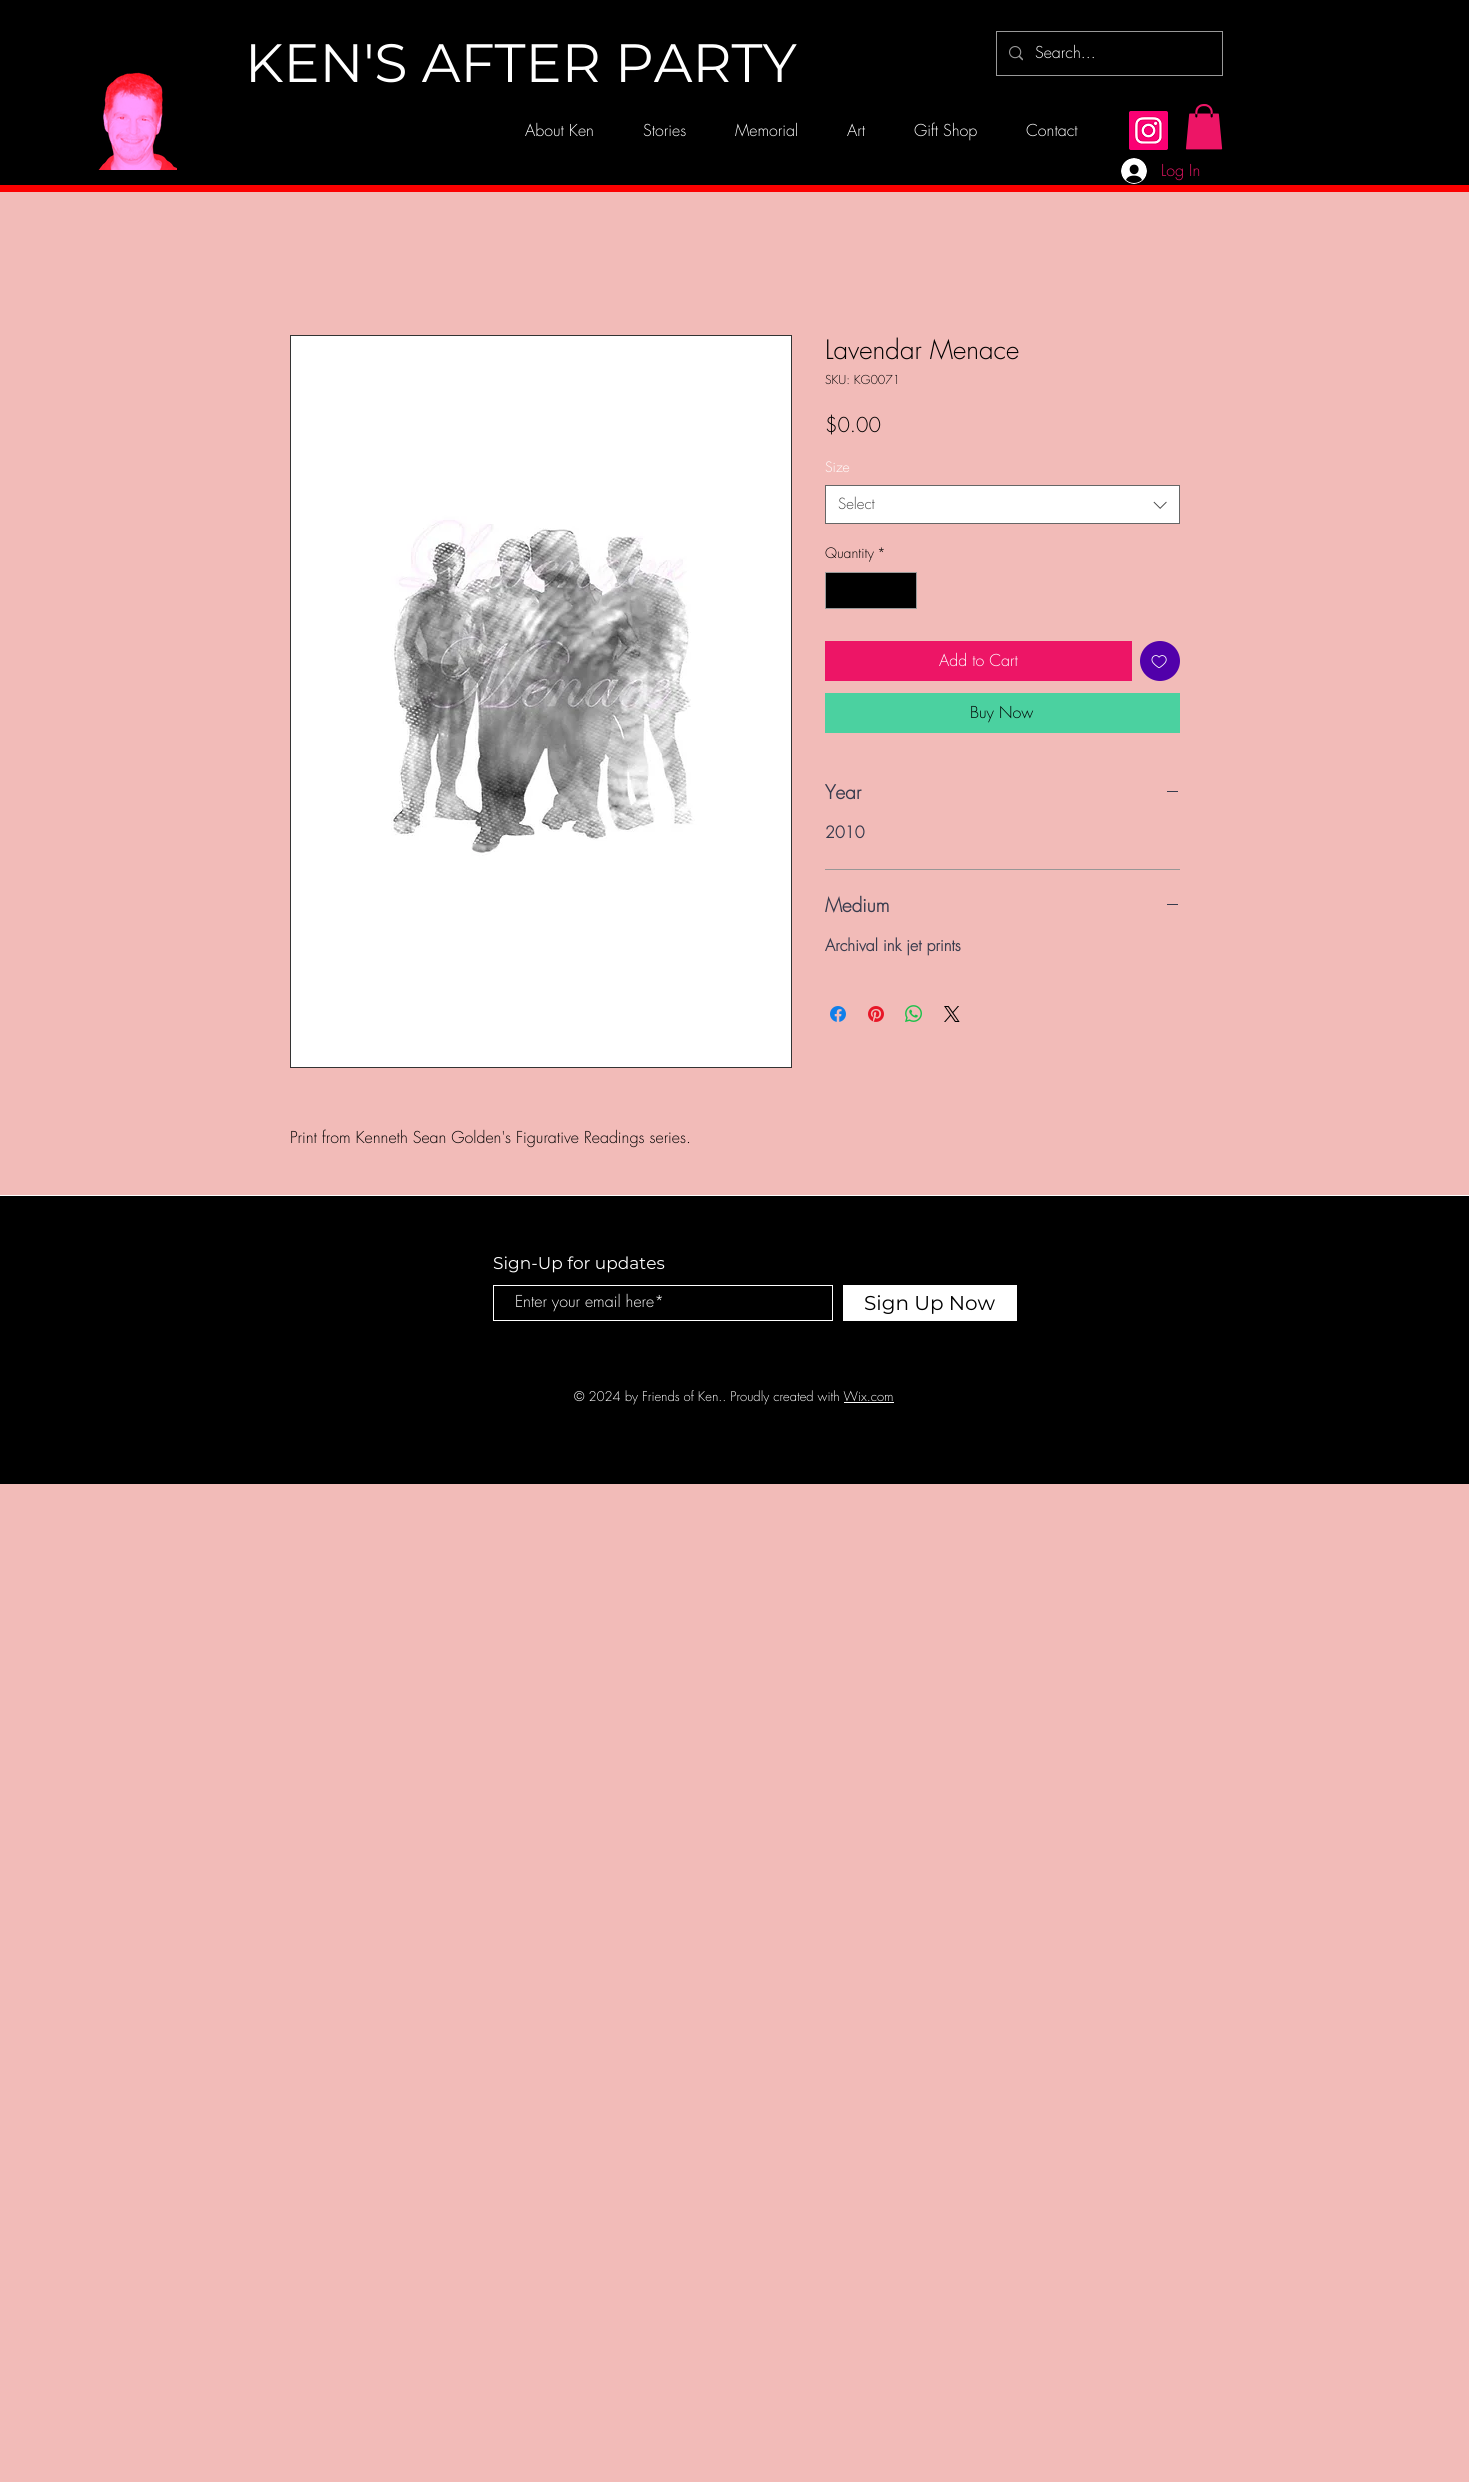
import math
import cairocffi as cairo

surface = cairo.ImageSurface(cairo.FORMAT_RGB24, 1469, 2482)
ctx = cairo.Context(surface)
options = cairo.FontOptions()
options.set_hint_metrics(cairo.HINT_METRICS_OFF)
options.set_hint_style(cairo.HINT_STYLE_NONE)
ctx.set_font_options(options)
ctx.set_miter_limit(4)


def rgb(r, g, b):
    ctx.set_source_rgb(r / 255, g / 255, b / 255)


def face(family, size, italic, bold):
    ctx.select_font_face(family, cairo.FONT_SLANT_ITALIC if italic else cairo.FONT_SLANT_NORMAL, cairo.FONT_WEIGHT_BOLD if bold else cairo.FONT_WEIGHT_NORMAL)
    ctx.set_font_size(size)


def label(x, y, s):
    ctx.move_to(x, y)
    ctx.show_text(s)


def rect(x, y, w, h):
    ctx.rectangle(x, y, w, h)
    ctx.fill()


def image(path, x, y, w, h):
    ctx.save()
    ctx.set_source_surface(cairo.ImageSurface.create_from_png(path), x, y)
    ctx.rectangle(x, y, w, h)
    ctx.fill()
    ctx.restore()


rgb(242, 187, 184)
ctx.paint()
rgb(0, 0, 0)
rect(0, 0, 1469, 185)
image('image0.png', 98, 72, 79, 98)
rgb(252, 0, 0)
rect(0, 185, 1469, 7)
face('Montserrat', 54, 0, 0)
rgb(255, 255, 255)
label(245, 82, 'KEN\'S AFTER PARTY')
ctx.rectangle(996.5, 31.5, 226, 44)
rgb(153, 153, 153)
ctx.set_line_width(1)
ctx.stroke()
image('image1.png', 1009, 46, 14, 15)
face('futura Light', 16, 0, 0)
rgb(255, 255, 255)
label(1035, 58, 'Search...')
label(525, 136, 'About Ken')
label(643, 136, 'Stories')
label(735, 136, 'Memorial')
label(847, 136, 'Art')
label(914, 136, 'Gift Shop')
label(1026, 136, 'Contact')
image('image2.png', 1129, 111, 39, 39)
image('image3.png', 1185, 104, 38, 46)
image('image4.png', 1121, 158, 26, 26)
rgb(237, 21, 102)
label(1161, 176, 'Log In')
face('futura Light', 26, 0, 0)
rgb(0, 0, 0)
label(825, 359, 'Lavendar Menace')
face('futura Light', 12, 0, 0)
label(825, 384, 'SKU: KG0071')
face('futura Light', 20, 0, 0)
label(825, 432, '$0.00')
face('futura Light', 14, 0, 0)
rgb(255, 255, 255)
label(825, 472, 'Size')
ctx.rectangle(825.5, 485.5, 354, 38)
ctx.fill_preserve()
rgb(102, 102, 102)
ctx.stroke()
face('futura Light', 15, 0, 0)
rgb(68, 68, 68)
label(838, 509, 'Select')
image('image5.png', 1153, 501, 14, 8)
face('futura Light', 14, 0, 0)
rgb(0, 0, 0)
label(825, 558, 'Quantity')
label(877, 558, '*')
ctx.rectangle(825.5, 572.5, 91, 36)
ctx.fill_preserve()
rgb(153, 153, 153)
ctx.stroke()
rgb(237, 21, 102)
rect(825, 641, 307, 40)
face('futura Light', 16, 0, 0)
rgb(255, 255, 255)
label(939, 666, 'Add to Cart')
rgb(81, 0, 170)
ctx.new_path()
ctx.arc(1160, 661, 20, 0, 2 * math.pi)
ctx.fill()
image('image6.png', 1151, 655, 16, 14)
rgb(75, 209, 160)
rect(825, 693, 355, 40)
rgb(0, 0, 0)
label(970, 718, 'Buy Now')
rgb(153, 150, 150)
rect(825, 869, 355, 1)
face('futura', 19, 0, 1)
rgb(55, 59, 77)
label(825, 799, 'Year')
rect(1167, 791, 11, 1)
face('futura', 16, 0, 1)
label(825, 838, '2010')
face('futura', 19, 0, 1)
label(825, 912, 'Medium')
rect(1167, 904, 11, 1)
face('futura', 16, 0, 1)
label(825, 951, 'Archival ink jet prints')
image('image7.png', 830, 1006, 16, 16)
image('image8.png', 868, 1006, 16, 16)
image('image9.png', 905, 1005, 17, 17)
image('image10.png', 944, 1006, 16, 16)
ctx.rectangle(290.5, 335.5, 501, 732)
rgb(51, 51, 51)
ctx.stroke()
image('image11.png', 291, 336, 500, 731)
face('futura Light', 16, 0, 0)
rgb(0, 0, 0)
label(290, 1143, 'Print from Kenneth Sean Golden\'s Figurative Readings series.')
rect(0, 1196, 1469, 288)
rgb(255, 255, 255)
rect(0, 1195, 1469, 1)
face('Montserrat', 17, 0, 0)
label(493, 1269, 'Sign-Up for updates')
ctx.rectangle(493.5, 1285.5, 339, 35)
ctx.stroke()
face('futura Light', 16, 0, 0)
label(515, 1307, 'Enter your email here*')
rect(843, 1285, 174, 36)
face('Montserrat', 20, 0, 0)
rgb(0, 0, 0)
label(864, 1310, 'Sign Up Now')
face('futura Light', 13, 0, 0)
rgb(255, 255, 255)
label(574, 1401, '© 2024 by Friends of Ken.. Proudly created with Wix.com')
rect(844, 1402, 50, 1)
surface.write_to_png('render.png')
